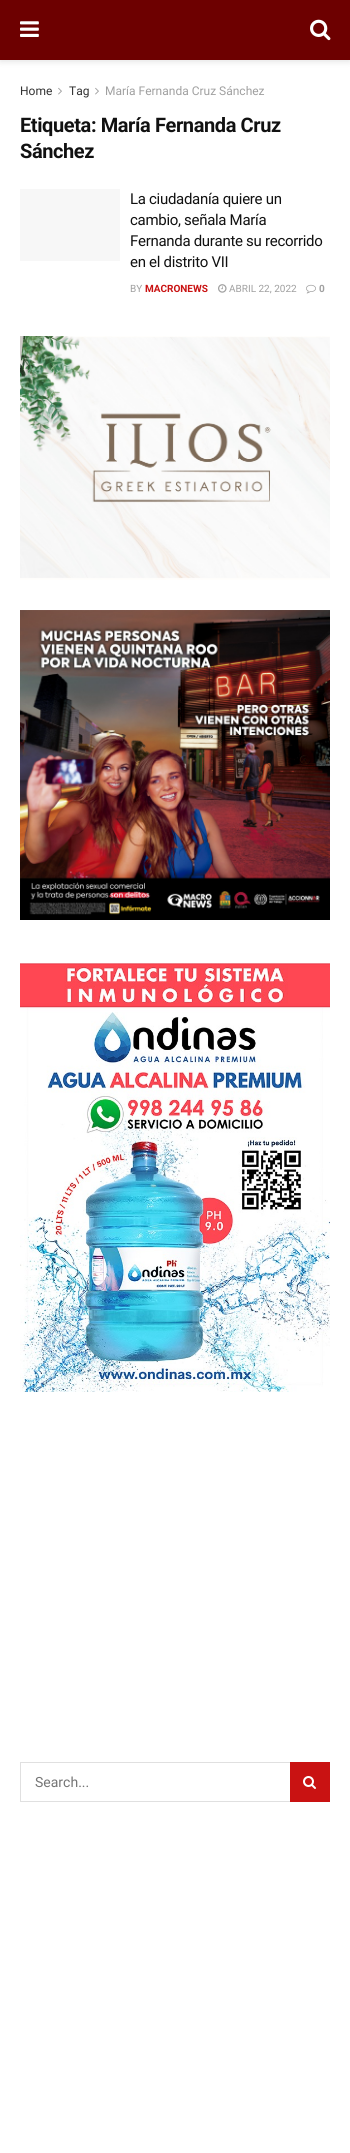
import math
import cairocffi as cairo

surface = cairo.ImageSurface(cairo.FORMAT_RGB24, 350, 2153)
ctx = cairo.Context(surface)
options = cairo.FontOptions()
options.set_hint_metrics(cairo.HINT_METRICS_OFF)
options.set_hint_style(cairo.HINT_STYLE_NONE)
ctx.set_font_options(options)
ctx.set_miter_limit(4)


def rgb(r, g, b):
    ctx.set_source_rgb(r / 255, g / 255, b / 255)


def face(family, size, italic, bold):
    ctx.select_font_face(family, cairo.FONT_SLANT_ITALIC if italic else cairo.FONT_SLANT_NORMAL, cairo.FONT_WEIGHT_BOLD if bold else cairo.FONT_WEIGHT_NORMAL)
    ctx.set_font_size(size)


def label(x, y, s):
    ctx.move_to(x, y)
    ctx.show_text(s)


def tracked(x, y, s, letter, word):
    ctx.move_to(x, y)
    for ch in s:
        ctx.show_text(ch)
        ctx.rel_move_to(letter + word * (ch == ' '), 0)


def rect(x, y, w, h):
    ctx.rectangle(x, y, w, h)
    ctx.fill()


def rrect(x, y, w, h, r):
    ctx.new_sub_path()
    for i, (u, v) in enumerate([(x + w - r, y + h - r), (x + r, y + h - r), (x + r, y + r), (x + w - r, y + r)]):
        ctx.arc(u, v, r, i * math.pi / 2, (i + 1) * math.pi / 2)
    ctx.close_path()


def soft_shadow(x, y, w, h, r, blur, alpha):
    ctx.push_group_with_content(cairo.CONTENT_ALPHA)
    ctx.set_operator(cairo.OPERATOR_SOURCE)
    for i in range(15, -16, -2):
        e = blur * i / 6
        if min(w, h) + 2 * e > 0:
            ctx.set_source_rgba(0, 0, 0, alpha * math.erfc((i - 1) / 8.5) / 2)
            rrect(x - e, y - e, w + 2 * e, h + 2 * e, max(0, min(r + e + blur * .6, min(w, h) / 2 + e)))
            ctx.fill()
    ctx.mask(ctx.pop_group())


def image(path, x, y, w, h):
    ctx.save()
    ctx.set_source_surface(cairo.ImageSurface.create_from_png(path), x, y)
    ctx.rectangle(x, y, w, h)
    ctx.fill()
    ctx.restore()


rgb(255, 255, 255)
ctx.paint()
rgb(0, 0, 0)
soft_shadow(0, 2, 350, 60, 0, 3, 0.1)
rgb(109, 0, 0)
rect(0, 0, 350, 60)
image('image0.png', 20, 21, 19, 16)
image('image1.png', 310, 19, 21, 22)
face('Roboto', 12, 0, 0)
rgb(50, 50, 50)
label(20, 95, 'Home')
image('image2.png', 58, 87, 4, 8)
label(69, 95, 'Tag')
image('image2.png', 95, 87, 4, 8)
rgb(160, 160, 160)
label(105, 95, 'María Fernanda Cruz Sánchez')
face('Roboto', 20, 0, 1)
rgb(17, 17, 17)
tracked(20, 132, 'Etiqueta: María Fernanda Cruz', -0.4, 0)
tracked(20, 158, 'Sánchez', -0.4, 0)
rgb(247, 247, 247)
rect(20, 189, 100, 72)
face('Roboto', 15, 0, 0)
rgb(17, 17, 17)
tracked(130, 204, 'La ciudadanía quiere un', -0.3, 0)
tracked(130, 225, 'cambio, señala María', -0.3, 0)
tracked(130, 246, 'Fernanda durante su recorrido', -0.3, 0)
tracked(130, 267, 'en el distrito VII', -0.3, 0)
face('Roboto', 10, 0, 0)
rgb(160, 160, 160)
label(130, 292, 'BY')
face('Roboto', 10, 0, 1)
rgb(201, 18, 18)
label(145, 292, 'MACRONEWS')
image('image3.png', 218, 284, 9, 9)
face('Roboto', 10, 0, 0)
rgb(160, 160, 160)
label(229, 292, 'ABRIL 22, 2022')
image('image4.png', 306, 284, 10, 10)
face('Roboto', 10, 0, 1)
label(319, 292, '0')
image('image5.png', 20, 336, 310, 244)
image('image6.png', 20, 610, 310, 310)
image('image7.png', 20, 963, 310, 429)
ctx.rectangle(20.5, 1762.5, 309, 39)
rgb(224, 224, 224)
ctx.set_line_width(1)
ctx.stroke()
face('Roboto', 14, 0, 0)
rgb(117, 117, 117)
label(35, 1787, 'Search...')
rgb(201, 18, 18)
rect(290, 1762, 40, 40)
image('image8.png', 303, 1776, 13, 13)
surface.write_to_png('render.png')
